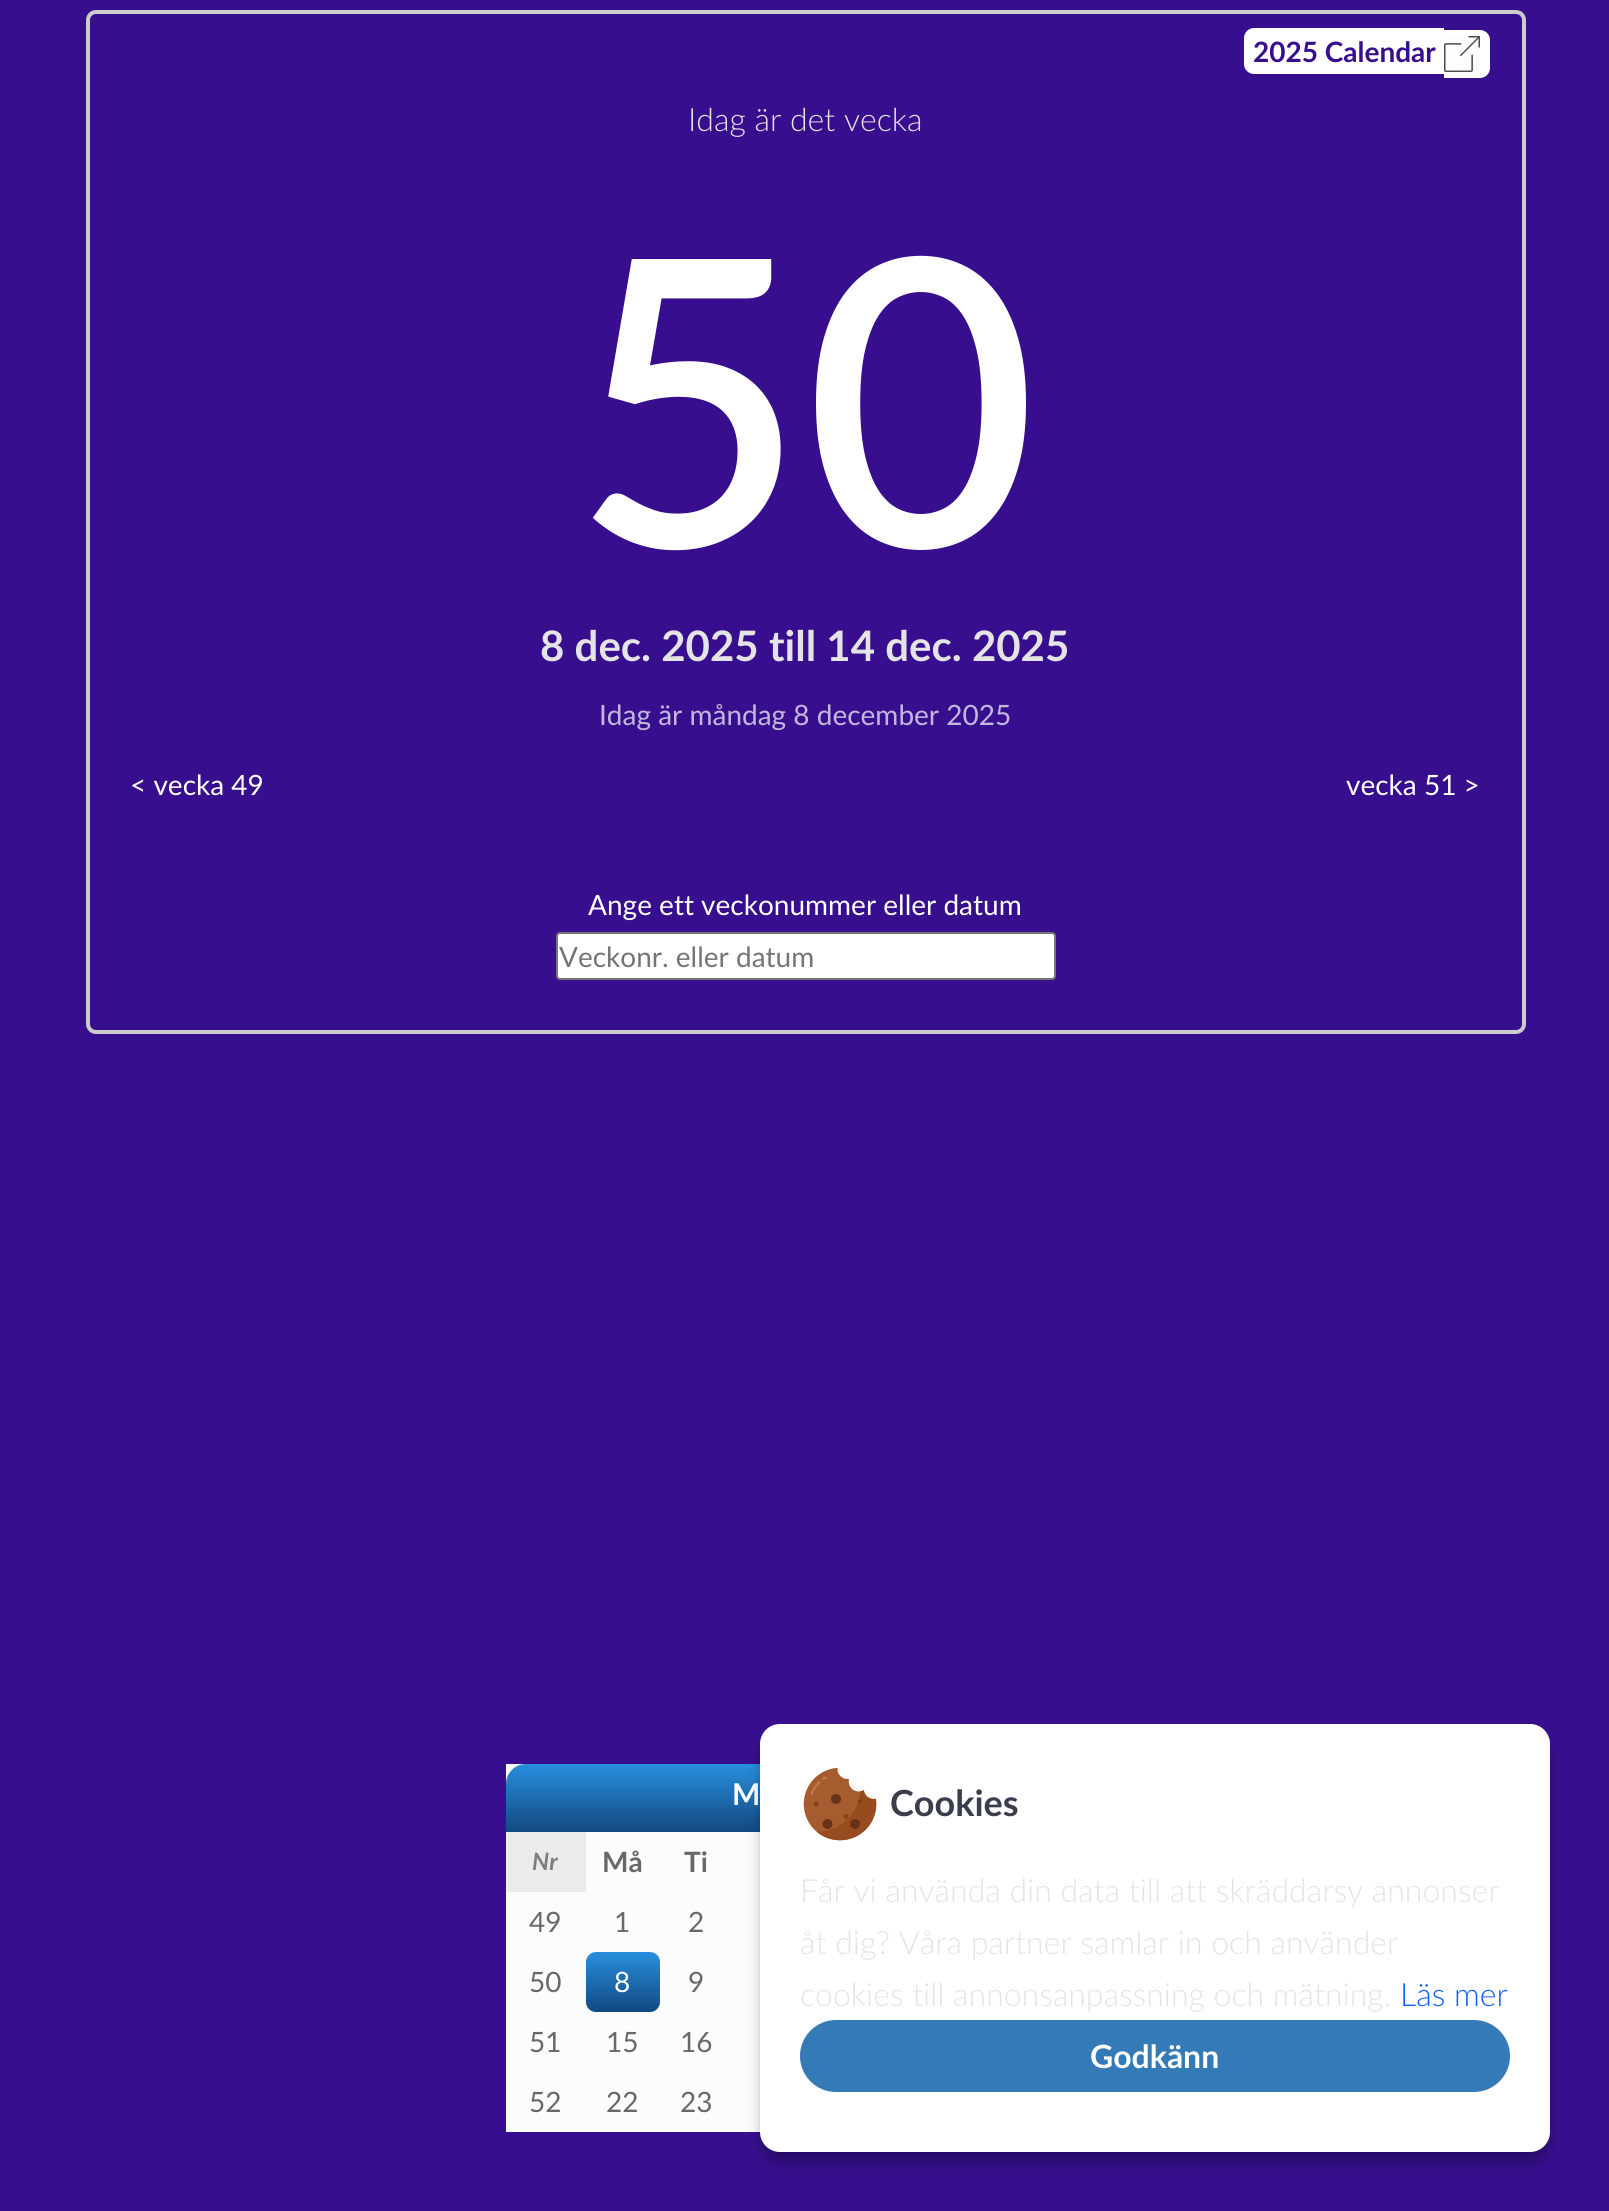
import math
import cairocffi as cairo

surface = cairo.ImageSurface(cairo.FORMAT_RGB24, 1609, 2211)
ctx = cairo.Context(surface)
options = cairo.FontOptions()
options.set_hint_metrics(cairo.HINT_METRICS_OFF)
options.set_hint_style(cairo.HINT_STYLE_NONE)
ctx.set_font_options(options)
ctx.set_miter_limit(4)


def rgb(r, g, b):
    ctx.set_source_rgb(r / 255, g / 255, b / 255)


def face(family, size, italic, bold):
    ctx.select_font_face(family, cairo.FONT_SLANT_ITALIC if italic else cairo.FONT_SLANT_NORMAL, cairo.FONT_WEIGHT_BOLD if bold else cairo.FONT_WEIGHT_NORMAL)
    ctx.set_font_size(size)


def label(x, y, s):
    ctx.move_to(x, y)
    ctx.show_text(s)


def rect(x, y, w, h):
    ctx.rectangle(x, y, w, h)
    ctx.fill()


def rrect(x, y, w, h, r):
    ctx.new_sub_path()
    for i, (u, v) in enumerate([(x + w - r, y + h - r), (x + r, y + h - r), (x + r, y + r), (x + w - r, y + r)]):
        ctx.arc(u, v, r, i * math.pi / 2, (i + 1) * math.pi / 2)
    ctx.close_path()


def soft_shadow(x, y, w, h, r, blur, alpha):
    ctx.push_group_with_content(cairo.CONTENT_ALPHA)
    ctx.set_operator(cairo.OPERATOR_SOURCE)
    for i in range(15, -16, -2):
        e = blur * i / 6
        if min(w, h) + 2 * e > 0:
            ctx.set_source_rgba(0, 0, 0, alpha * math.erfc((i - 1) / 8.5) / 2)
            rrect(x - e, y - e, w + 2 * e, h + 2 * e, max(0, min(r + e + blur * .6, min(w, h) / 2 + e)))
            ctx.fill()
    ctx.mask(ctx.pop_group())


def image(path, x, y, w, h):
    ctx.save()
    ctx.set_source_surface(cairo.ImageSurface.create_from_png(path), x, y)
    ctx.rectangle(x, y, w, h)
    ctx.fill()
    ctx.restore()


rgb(55, 15, 142)
ctx.paint()
rrect(88, 12, 1436, 1020, 8)
rgb(204, 204, 204)
ctx.set_line_width(4)
ctx.stroke()
rgb(255, 255, 255)
ctx.new_path()
ctx.move_to(1254, 28)
ctx.line_to(1318, 28)
ctx.line_to(1318, 74)
ctx.line_to(1254, 74)
ctx.curve_to(1248.5, 74, 1244, 69.5, 1244, 64)
ctx.line_to(1244, 38)
ctx.curve_to(1244, 32.5, 1248.5, 28, 1254, 28)
ctx.close_path()
ctx.fill()
rect(1318, 28, 126, 46)
face('Lato', 28, 0, 1)
rgb(55, 15, 142)
label(1253, 62, '2025 Calendar')
rgb(255, 255, 255)
ctx.new_path()
ctx.move_to(1444, 30)
ctx.line_to(1480, 30)
ctx.curve_to(1485.5, 30, 1490, 34.5, 1490, 40)
ctx.line_to(1490, 68)
ctx.curve_to(1490, 73.5, 1485.5, 78, 1480, 78)
ctx.line_to(1444, 78)
ctx.close_path()
ctx.fill()
image('image0.png', 1444, 36, 36, 36)
face('Lato Light', 32, 0, 0)
rgb(228, 228, 228)
label(688, 131, 'Idag är det vecka')
face('Lato SemiBold', 400, 0, 0)
rgb(255, 255, 255)
label(573, 547, '50')
face('Lato', 42, 0, 1)
rgb(228, 228, 228)
label(540, 661, '8 dec. 2025 till 14 dec. 2025')
face('Lato', 28, 0, 0)
rgb(195, 183, 221)
label(599, 725, 'Idag är måndag 8 december 2025')
rgb(255, 255, 255)
label(130, 795, '< vecka 49')
label(1346, 795, 'vecka 51 >')
label(588, 915, 'Ange ett veckonummer eller datum')
rrect(557, 933, 498, 46, 3)
ctx.fill_preserve()
rgb(118, 118, 118)
ctx.set_line_width(2)
ctx.stroke()
rgb(117, 117, 117)
label(559, 967, 'Veckonr. eller datum')
rgb(252, 252, 252)
rect(506, 1764, 254, 368)
gradient = cairo.LinearGradient(805, 1832, 805, 1764)
gradient.add_color_stop_rgba(0, 0.075, 0.282, 0.506, 1)
gradient.add_color_stop_rgba(1, 0.157, 0.561, 0.867, 1)
ctx.set_source(gradient)
ctx.new_path()
ctx.move_to(526, 1764)
ctx.line_to(1084, 1764)
ctx.curve_to(1095, 1764, 1104, 1773, 1104, 1784)
ctx.line_to(1104, 1832)
ctx.line_to(506, 1832)
ctx.line_to(506, 1784)
ctx.curve_to(506, 1773, 515, 1764, 526, 1764)
ctx.close_path()
ctx.fill()
face('Lato', 30, 0, 1)
rgb(255, 255, 255)
label(732, 1805, 'M')
rgb(235, 235, 235)
rect(506, 1832, 80, 60)
face('Lato', 24, 1, 1)
rgb(126, 126, 126)
label(532, 1870, 'Nr')
face('Lato', 28, 0, 1)
rgb(104, 104, 104)
label(602, 1872, 'Må')
label(684, 1872, 'Ti')
face('Lato', 28, 0, 0)
label(529, 1932, '49')
label(614, 1932, '1')
label(688, 1932, '2')
label(529, 1992, '50')
gradient = cairo.LinearGradient(623, 2012, 623, 1952)
gradient.add_color_stop_rgba(0, 0.075, 0.282, 0.506, 1)
gradient.add_color_stop_rgba(1, 0.157, 0.561, 0.867, 1)
ctx.set_source(gradient)
rrect(586, 1952, 74, 60, 10)
ctx.fill()
rgb(255, 255, 255)
label(614, 1992, '8')
rgb(104, 104, 104)
label(688, 1992, '9')
label(529, 2052, '51')
label(606, 2052, '15')
label(680, 2052, '16')
label(529, 2112, '52')
label(606, 2112, '22')
label(680, 2112, '23')
rgb(0, 0, 0)
soft_shadow(760, 1736, 790, 428, 20, 6, 0.25)
rgb(255, 255, 255)
rrect(760, 1724, 790, 428, 20)
ctx.fill()
image('image1.png', 803, 1767, 74, 74)
face('Lato', 36, 0, 1)
rgb(57, 61, 77)
label(890, 1816, 'Cookies')
face('Lato Light', 32, 0, 0)
rgb(228, 228, 228)
label(800, 1902, 'Får vi använda din data till att skräddarsy annonser')
label(800, 1954, 'åt dig? Våra partner samlar in och använder')
label(800, 2006, 'cookies till annonsanpassning och mätning.')
rgb(17, 92, 250)
label(1400, 2006, 'Läs mer')
rgb(51, 122, 183)
rrect(800, 2020, 710, 72, 36)
ctx.fill()
face('Lato', 32, 0, 1)
rgb(255, 255, 255)
label(1090, 2068, 'Godkänn')
surface.write_to_png('render.png')
